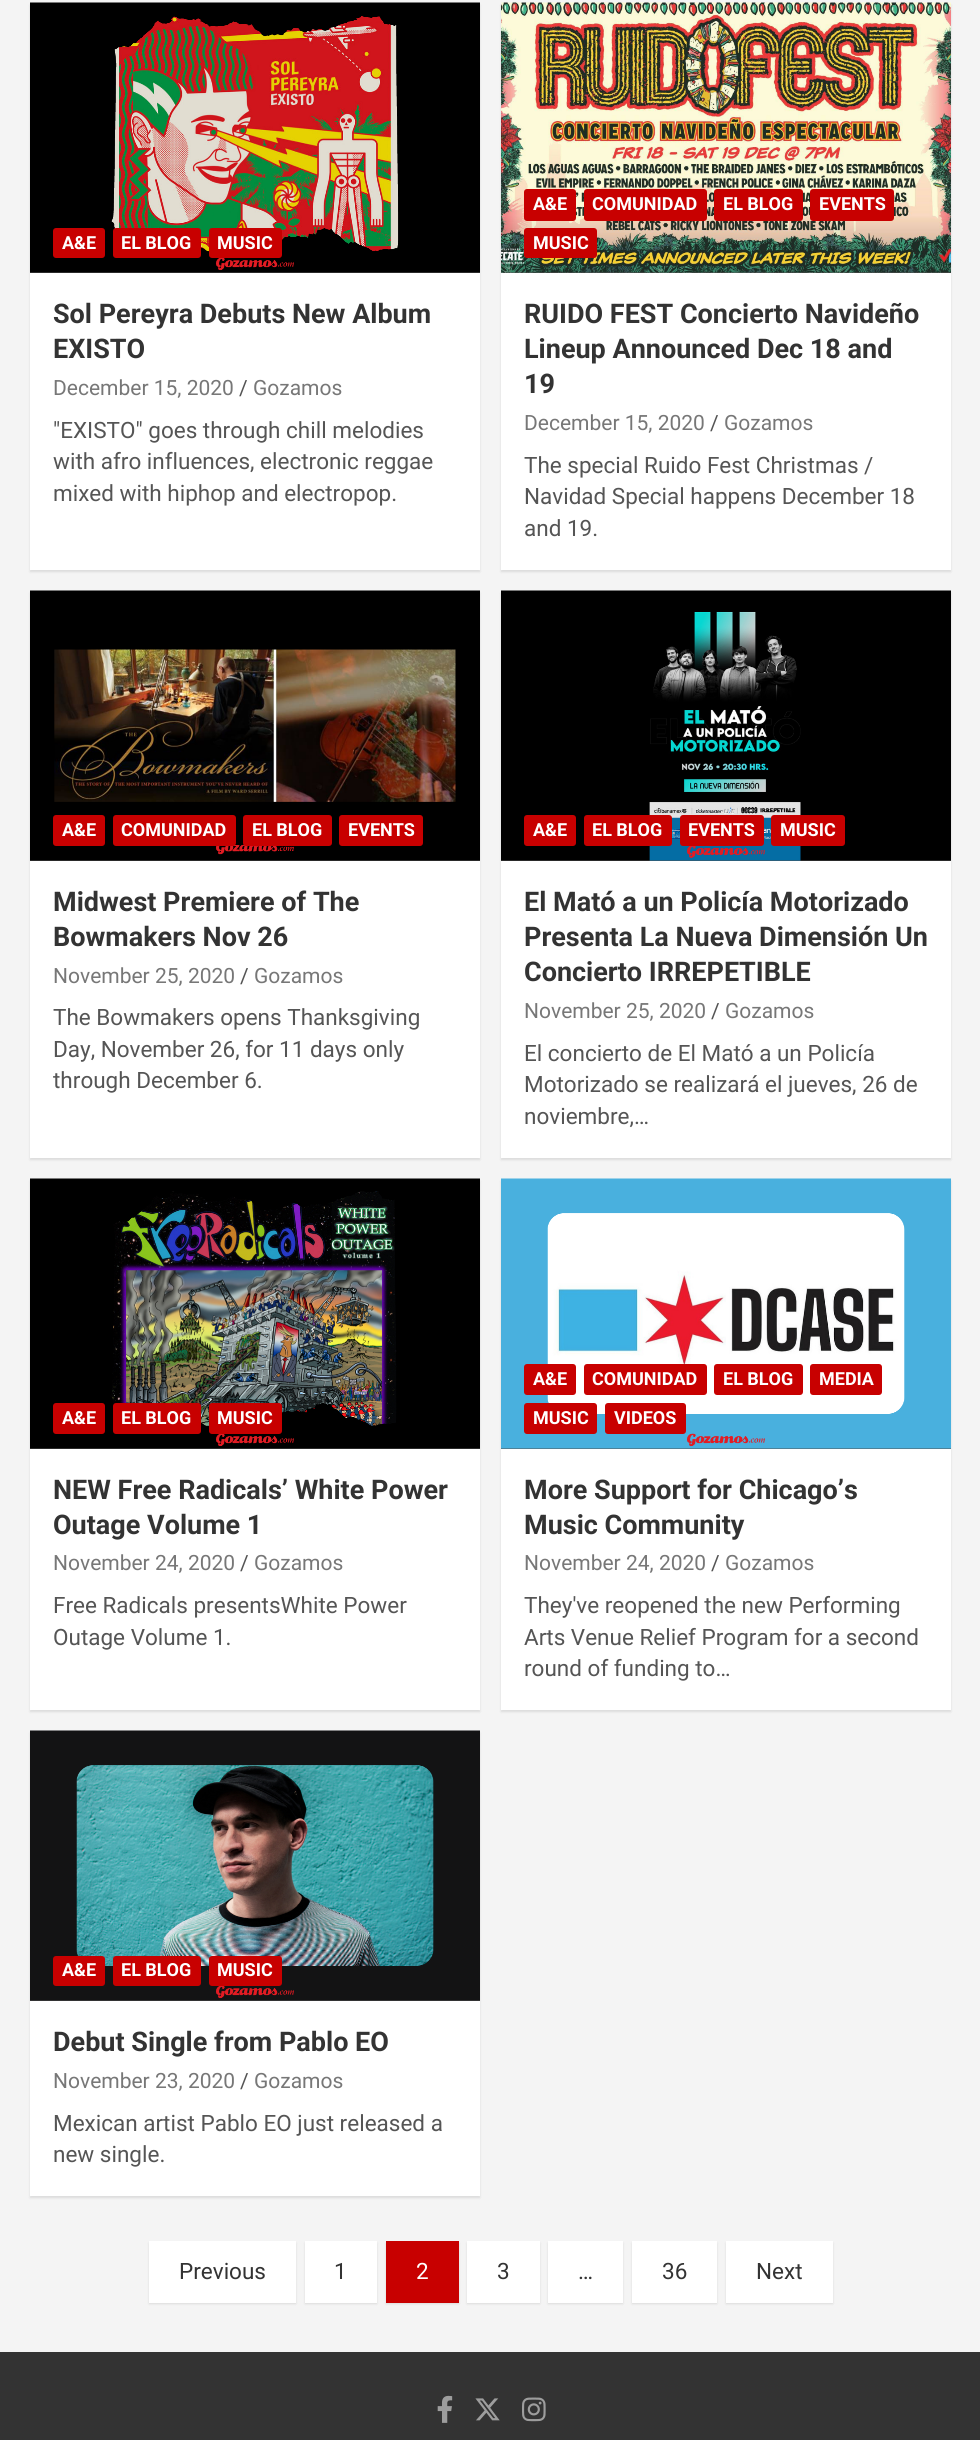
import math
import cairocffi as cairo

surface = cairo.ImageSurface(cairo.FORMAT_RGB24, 980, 2440)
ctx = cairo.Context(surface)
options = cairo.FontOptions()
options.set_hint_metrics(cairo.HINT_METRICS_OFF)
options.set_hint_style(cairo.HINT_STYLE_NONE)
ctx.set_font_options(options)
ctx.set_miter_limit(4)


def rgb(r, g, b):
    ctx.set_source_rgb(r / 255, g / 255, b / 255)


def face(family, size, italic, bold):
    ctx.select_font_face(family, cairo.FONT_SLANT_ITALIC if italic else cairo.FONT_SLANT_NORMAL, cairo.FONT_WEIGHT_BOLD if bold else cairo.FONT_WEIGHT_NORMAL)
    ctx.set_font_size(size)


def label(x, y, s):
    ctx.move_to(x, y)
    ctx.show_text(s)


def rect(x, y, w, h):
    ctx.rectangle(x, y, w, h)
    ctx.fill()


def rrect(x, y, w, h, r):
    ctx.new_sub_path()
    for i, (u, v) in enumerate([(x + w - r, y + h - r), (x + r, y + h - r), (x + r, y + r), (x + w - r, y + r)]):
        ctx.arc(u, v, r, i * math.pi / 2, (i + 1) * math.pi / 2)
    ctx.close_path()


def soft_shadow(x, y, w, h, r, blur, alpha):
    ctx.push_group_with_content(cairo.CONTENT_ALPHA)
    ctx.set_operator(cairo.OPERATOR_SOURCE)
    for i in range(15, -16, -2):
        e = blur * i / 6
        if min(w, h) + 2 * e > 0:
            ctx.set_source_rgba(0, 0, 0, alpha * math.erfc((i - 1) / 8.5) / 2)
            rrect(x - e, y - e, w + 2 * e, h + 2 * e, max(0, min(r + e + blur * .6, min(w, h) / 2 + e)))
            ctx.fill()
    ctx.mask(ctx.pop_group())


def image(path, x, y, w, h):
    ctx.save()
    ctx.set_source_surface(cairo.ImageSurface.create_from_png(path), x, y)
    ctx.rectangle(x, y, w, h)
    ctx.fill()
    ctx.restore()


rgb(244, 244, 244)
ctx.paint()
rgb(0, 0, 0)
soft_shadow(30, 5, 450, 567, 0, 1, 0.1)
rgb(255, 255, 255)
rect(30, 273, 450, 297)
rgb(85, 85, 85)
rect(30, 272, 450, 1)
image('image0.png', 30, 2, 450, 271)
rgb(200, 0, 0)
rrect(53, 228, 52, 30, 3)
ctx.fill()
face('Roboto', 18, 0, 1)
rgb(255, 255, 255)
label(62, 249, 'A&E')
rgb(200, 0, 0)
rrect(113, 228, 88, 30, 3)
ctx.fill()
rgb(255, 255, 255)
label(121, 249, 'EL BLOG')
rgb(200, 0, 0)
rrect(209, 228, 73, 30, 3)
ctx.fill()
rgb(255, 255, 255)
label(217, 249, 'MUSIC')
face('Roboto', 27, 0, 1)
rgb(51, 51, 51)
label(53, 323, 'Sol Pereyra Debuts New Album')
label(53, 358, 'EXISTO')
face('Roboto', 21, 0, 0)
rgb(119, 119, 119)
label(53, 395, 'December 15, 2020')
rgb(85, 85, 85)
label(239, 395, '/')
rgb(119, 119, 119)
label(253, 395, 'Gozamos')
face('Roboto', 22.5, 0, 0)
rgb(85, 85, 85)
label(53, 438, '"EXISTO" goes through chill melodies')
label(53, 469, 'with afro influences, electronic reggae')
label(53, 501, 'mixed with hiphop and electropop.')
rgb(0, 0, 0)
soft_shadow(501, 5, 450, 567, 0, 1, 0.1)
rgb(255, 255, 255)
rect(501, 273, 450, 297)
rgb(85, 85, 85)
rect(501, 272, 450, 1)
image('image1.png', 501, 2, 450, 271)
rgb(200, 0, 0)
rrect(524, 189, 52, 32, 3)
ctx.fill()
face('Roboto', 18, 0, 1)
rgb(255, 255, 255)
label(533, 210, 'A&E')
rgb(200, 0, 0)
rrect(584, 189, 123, 32, 3)
ctx.fill()
rgb(255, 255, 255)
label(592, 210, 'COMUNIDAD')
rgb(200, 0, 0)
rrect(714, 189, 89, 32, 3)
ctx.fill()
rgb(255, 255, 255)
label(723, 210, 'EL BLOG')
rgb(200, 0, 0)
rrect(810, 189, 84, 32, 3)
ctx.fill()
rgb(255, 255, 255)
label(819, 210, 'EVENTS')
rgb(200, 0, 0)
rrect(524, 228, 73, 30, 3)
ctx.fill()
rgb(255, 255, 255)
label(533, 249, 'MUSIC')
face('Roboto', 27, 0, 1)
rgb(51, 51, 51)
label(524, 323, 'RUIDO FEST Concierto Navideño')
label(524, 358, 'Lineup Announced Dec 18 and')
label(524, 393, '19')
face('Roboto', 21, 0, 0)
rgb(119, 119, 119)
label(524, 430, 'December 15, 2020')
rgb(85, 85, 85)
label(710, 430, '/')
rgb(119, 119, 119)
label(724, 430, 'Gozamos')
face('Roboto', 22.5, 0, 0)
rgb(85, 85, 85)
label(524, 473, 'The special Ruido Fest Christmas /')
label(524, 504, 'Navidad Special happens December 18')
label(524, 536, 'and 19.')
rgb(0, 0, 0)
soft_shadow(30, 593, 450, 567, 0, 1, 0.1)
rgb(255, 255, 255)
rect(30, 861, 450, 297)
rgb(85, 85, 85)
rect(30, 860, 450, 1)
image('image2.png', 30, 590, 450, 271)
rgb(200, 0, 0)
rrect(53, 815, 52, 31, 3)
ctx.fill()
face('Roboto', 18, 0, 1)
rgb(255, 255, 255)
label(62, 836, 'A&E')
rgb(200, 0, 0)
rrect(113, 815, 123, 31, 3)
ctx.fill()
rgb(255, 255, 255)
label(121, 836, 'COMUNIDAD')
rgb(200, 0, 0)
rrect(243, 815, 89, 31, 3)
ctx.fill()
rgb(255, 255, 255)
label(252, 836, 'EL BLOG')
rgb(200, 0, 0)
rrect(339, 815, 84, 31, 3)
ctx.fill()
rgb(255, 255, 255)
label(348, 836, 'EVENTS')
face('Roboto', 27, 0, 1)
rgb(51, 51, 51)
label(53, 911, 'Midwest Premiere of The')
label(53, 946, 'Bowmakers Nov 26')
face('Roboto', 21, 0, 0)
rgb(119, 119, 119)
label(53, 983, 'November 25, 2020')
rgb(85, 85, 85)
label(240, 983, '/')
rgb(119, 119, 119)
label(254, 983, 'Gozamos')
face('Roboto', 22.5, 0, 0)
rgb(85, 85, 85)
label(53, 1025, 'The Bowmakers opens Thanksgiving')
label(53, 1057, 'Day, November 26, for 11 days only')
label(53, 1088, 'through December 6.')
rgb(0, 0, 0)
soft_shadow(501, 593, 450, 567, 0, 1, 0.1)
rgb(255, 255, 255)
rect(501, 861, 450, 297)
rgb(85, 85, 85)
rect(501, 860, 450, 1)
image('image3.png', 501, 590, 450, 271)
rgb(200, 0, 0)
rrect(524, 815, 52, 31, 3)
ctx.fill()
face('Roboto', 18, 0, 1)
rgb(255, 255, 255)
label(533, 836, 'A&E')
rgb(200, 0, 0)
rrect(584, 815, 88, 31, 3)
ctx.fill()
rgb(255, 255, 255)
label(592, 836, 'EL BLOG')
rgb(200, 0, 0)
rrect(680, 815, 84, 31, 3)
ctx.fill()
rgb(255, 255, 255)
label(688, 836, 'EVENTS')
rgb(200, 0, 0)
rrect(771, 815, 74, 31, 3)
ctx.fill()
rgb(255, 255, 255)
label(780, 836, 'MUSIC')
face('Roboto', 27, 0, 1)
rgb(51, 51, 51)
label(524, 911, 'El Mató a un Policía Motorizado')
label(524, 946, 'Presenta La Nueva Dimensión Un')
label(524, 981, 'Concierto IRREPETIBLE')
face('Roboto', 21, 0, 0)
rgb(119, 119, 119)
label(524, 1018, 'November 25, 2020')
rgb(85, 85, 85)
label(711, 1018, '/')
rgb(119, 119, 119)
label(725, 1018, 'Gozamos')
face('Roboto', 22.5, 0, 0)
rgb(85, 85, 85)
label(524, 1061, 'El concierto de El Mató a un Policía')
label(524, 1092, 'Motorizado se realizará el jueves, 26 de')
label(524, 1124, 'noviembre,…')
rgb(0, 0, 0)
soft_shadow(30, 1181, 450, 531, 0, 1, 0.1)
rgb(255, 255, 255)
rect(30, 1449, 450, 261)
rgb(85, 85, 85)
rect(30, 1448, 450, 1)
image('image4.png', 30, 1178, 450, 271)
rgb(200, 0, 0)
rrect(53, 1403, 52, 31, 3)
ctx.fill()
face('Roboto', 18, 0, 1)
rgb(255, 255, 255)
label(62, 1424, 'A&E')
rgb(200, 0, 0)
rrect(113, 1403, 88, 31, 3)
ctx.fill()
rgb(255, 255, 255)
label(121, 1424, 'EL BLOG')
rgb(200, 0, 0)
rrect(209, 1403, 73, 31, 3)
ctx.fill()
rgb(255, 255, 255)
label(217, 1424, 'MUSIC')
face('Roboto', 27, 0, 1)
rgb(51, 51, 51)
label(53, 1499, 'NEW Free Radicals’ White Power')
label(53, 1534, 'Outage Volume 1')
face('Roboto', 21, 0, 0)
rgb(119, 119, 119)
label(53, 1570, 'November 24, 2020')
rgb(85, 85, 85)
label(240, 1570, '/')
rgb(119, 119, 119)
label(254, 1570, 'Gozamos')
face('Roboto', 22.5, 0, 0)
rgb(85, 85, 85)
label(53, 1613, 'Free Radicals presentsWhite Power')
label(53, 1645, 'Outage Volume 1.')
rgb(0, 0, 0)
soft_shadow(501, 1181, 450, 531, 0, 1, 0.1)
rgb(255, 255, 255)
rect(501, 1449, 450, 261)
rgb(85, 85, 85)
rect(501, 1448, 450, 1)
image('image5.png', 501, 1178, 450, 271)
rgb(200, 0, 0)
rrect(524, 1364, 52, 31, 3)
ctx.fill()
face('Roboto', 18, 0, 1)
rgb(255, 255, 255)
label(533, 1385, 'A&E')
rgb(200, 0, 0)
rrect(584, 1364, 123, 31, 3)
ctx.fill()
rgb(255, 255, 255)
label(592, 1385, 'COMUNIDAD')
rgb(200, 0, 0)
rrect(714, 1364, 89, 31, 3)
ctx.fill()
rgb(255, 255, 255)
label(723, 1385, 'EL BLOG')
rgb(200, 0, 0)
rrect(810, 1364, 72, 31, 3)
ctx.fill()
rgb(255, 255, 255)
label(819, 1385, 'MEDIA')
rgb(200, 0, 0)
rrect(524, 1403, 73, 31, 3)
ctx.fill()
rgb(255, 255, 255)
label(533, 1424, 'MUSIC')
rgb(200, 0, 0)
rrect(605, 1403, 81, 31, 3)
ctx.fill()
rgb(255, 255, 255)
label(614, 1424, 'VIDEOS')
face('Roboto', 27, 0, 1)
rgb(51, 51, 51)
label(524, 1499, 'More Support for Chicago’s')
label(524, 1534, 'Music Community')
face('Roboto', 21, 0, 0)
rgb(119, 119, 119)
label(524, 1570, 'November 24, 2020')
rgb(85, 85, 85)
label(711, 1570, '/')
rgb(119, 119, 119)
label(725, 1570, 'Gozamos')
face('Roboto', 22.5, 0, 0)
rgb(85, 85, 85)
label(524, 1613, 'They\'ve reopened the new Performing')
label(524, 1645, 'Arts Venue Relief Program for a second')
label(524, 1676, 'round of funding to…')
rgb(0, 0, 0)
soft_shadow(30, 1733, 450, 465, 0, 1, 0.1)
rgb(255, 255, 255)
rect(30, 2001, 450, 195)
rgb(85, 85, 85)
rect(30, 2000, 450, 1)
image('image6.png', 30, 1730, 450, 271)
rgb(200, 0, 0)
rrect(53, 1956, 52, 30, 3)
ctx.fill()
face('Roboto', 18, 0, 1)
rgb(255, 255, 255)
label(62, 1976, 'A&E')
rgb(200, 0, 0)
rrect(113, 1956, 88, 30, 3)
ctx.fill()
rgb(255, 255, 255)
label(121, 1976, 'EL BLOG')
rgb(200, 0, 0)
rrect(209, 1956, 73, 30, 3)
ctx.fill()
rgb(255, 255, 255)
label(217, 1976, 'MUSIC')
face('Roboto', 27, 0, 1)
rgb(51, 51, 51)
label(53, 2051, 'Debut Single from Pablo EO')
face('Roboto', 21, 0, 0)
rgb(119, 119, 119)
label(53, 2088, 'November 23, 2020')
rgb(85, 85, 85)
label(240, 2088, '/')
rgb(119, 119, 119)
label(254, 2088, 'Gozamos')
face('Roboto', 22.5, 0, 0)
rgb(85, 85, 85)
label(53, 2131, 'Mexican artist Pablo EO just released a')
label(53, 2162, 'new single.')
rgb(0, 0, 0)
soft_shadow(149, 2243, 147, 61, 0, 1, 0.1)
rgb(255, 255, 255)
rect(149, 2241, 147, 62)
rgb(51, 51, 51)
label(179, 2279, 'Previous')
rgb(0, 0, 0)
soft_shadow(305, 2243, 72, 61, 0, 1, 0.1)
rgb(255, 255, 255)
rect(305, 2241, 72, 62)
rgb(51, 51, 51)
label(334, 2279, '1')
rgb(0, 0, 0)
soft_shadow(386, 2243, 73, 61, 0, 1, 0.1)
rgb(200, 0, 0)
rect(386, 2241, 73, 62)
rgb(255, 255, 255)
label(416, 2279, '2')
rgb(0, 0, 0)
soft_shadow(467, 2243, 73, 61, 0, 1, 0.1)
rgb(255, 255, 255)
rect(467, 2241, 73, 62)
rgb(51, 51, 51)
label(497, 2279, '3')
rgb(0, 0, 0)
soft_shadow(548, 2243, 75, 61, 0, 1, 0.1)
rgb(255, 255, 255)
rect(548, 2241, 75, 62)
rgb(51, 51, 51)
label(578, 2279, '…')
rgb(0, 0, 0)
soft_shadow(632, 2243, 85, 61, 0, 1, 0.1)
rgb(255, 255, 255)
rect(632, 2241, 85, 62)
rgb(51, 51, 51)
label(662, 2279, '36')
rgb(0, 0, 0)
soft_shadow(726, 2243, 107, 61, 0, 1, 0.1)
rgb(255, 255, 255)
rect(726, 2241, 107, 62)
rgb(51, 51, 51)
label(756, 2279, 'Next')
rect(0, 2352, 980, 88)
image('image7.png', 437, 2395, 16, 28)
image('image8.png', 475, 2398, 25, 23)
image('image9.png', 522, 2397, 24, 25)
surface.write_to_png('render.png')
